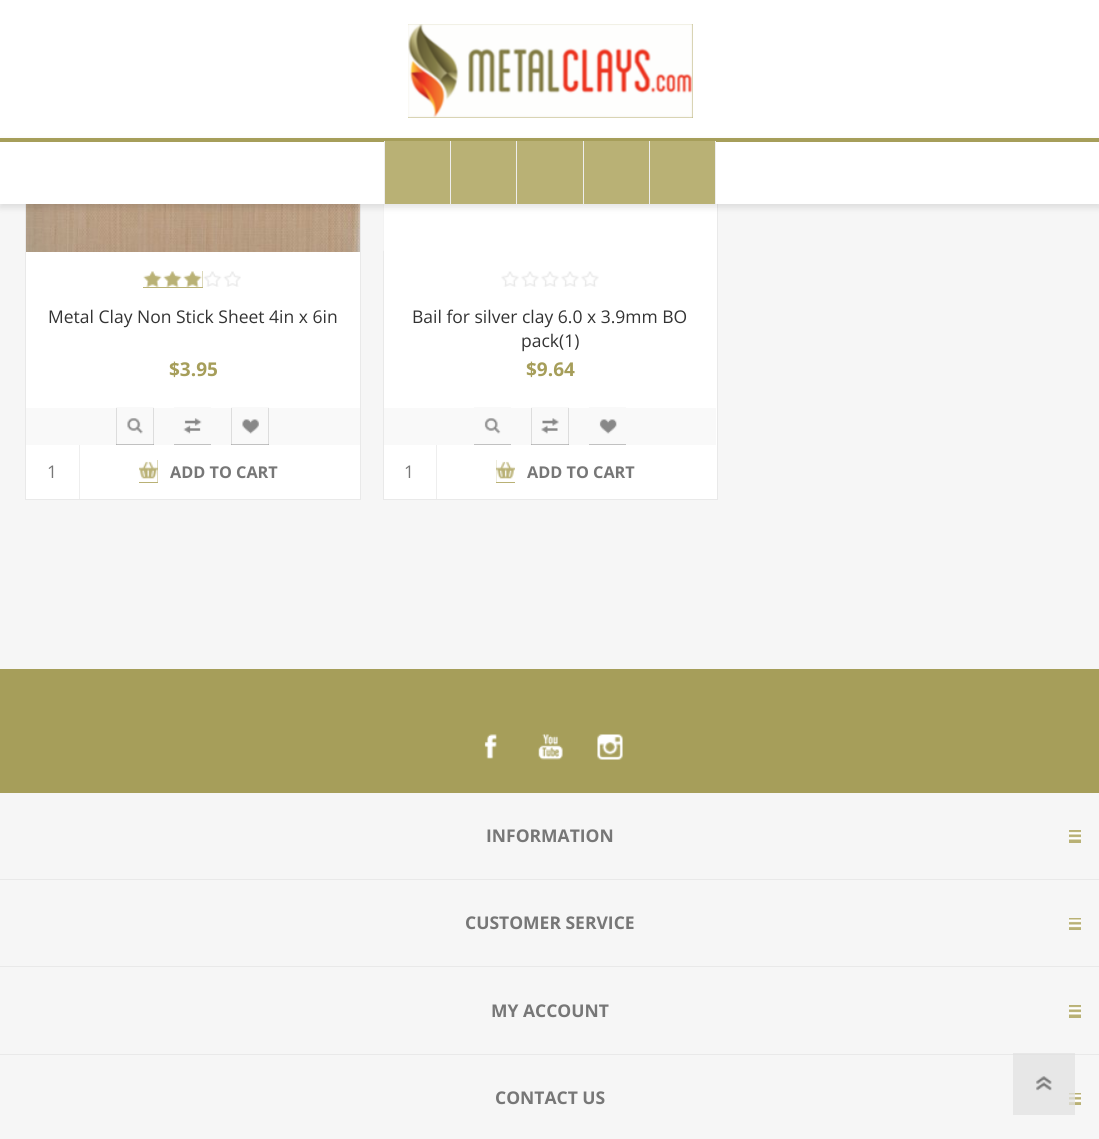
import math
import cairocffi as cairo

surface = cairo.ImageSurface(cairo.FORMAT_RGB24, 1099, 1139)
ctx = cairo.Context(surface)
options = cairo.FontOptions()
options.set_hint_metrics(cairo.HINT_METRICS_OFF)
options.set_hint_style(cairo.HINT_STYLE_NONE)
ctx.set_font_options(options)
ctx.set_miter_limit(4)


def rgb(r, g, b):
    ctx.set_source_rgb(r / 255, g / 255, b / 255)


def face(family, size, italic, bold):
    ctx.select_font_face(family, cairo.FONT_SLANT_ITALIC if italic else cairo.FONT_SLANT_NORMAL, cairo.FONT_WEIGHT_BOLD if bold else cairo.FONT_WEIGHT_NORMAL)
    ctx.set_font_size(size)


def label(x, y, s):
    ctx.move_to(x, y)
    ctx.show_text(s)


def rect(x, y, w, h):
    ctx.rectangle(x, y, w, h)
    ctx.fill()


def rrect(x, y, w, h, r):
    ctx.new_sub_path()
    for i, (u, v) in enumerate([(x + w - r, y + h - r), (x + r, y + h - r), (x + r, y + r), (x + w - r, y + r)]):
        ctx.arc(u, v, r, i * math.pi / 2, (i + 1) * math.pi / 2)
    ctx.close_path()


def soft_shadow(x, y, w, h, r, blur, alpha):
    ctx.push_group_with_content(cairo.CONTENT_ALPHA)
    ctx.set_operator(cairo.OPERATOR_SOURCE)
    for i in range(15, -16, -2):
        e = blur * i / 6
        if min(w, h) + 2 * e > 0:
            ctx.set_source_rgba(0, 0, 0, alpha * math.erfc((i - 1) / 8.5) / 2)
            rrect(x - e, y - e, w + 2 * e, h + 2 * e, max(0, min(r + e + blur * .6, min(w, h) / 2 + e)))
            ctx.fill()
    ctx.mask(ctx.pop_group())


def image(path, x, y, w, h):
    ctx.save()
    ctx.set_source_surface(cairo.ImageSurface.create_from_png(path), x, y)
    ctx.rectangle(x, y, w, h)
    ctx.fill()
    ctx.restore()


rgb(246, 246, 246)
ctx.paint()
rgb(255, 255, 255)
rect(26, 204, 334, 295)
ctx.rectangle(25.5, -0.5, 335, 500)
rgb(233, 233, 233)
ctx.set_line_width(1)
ctx.stroke()
rgb(255, 255, 255)
rect(384, 204, 333, 295)
ctx.rectangle(383.5, -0.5, 334, 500)
rgb(233, 233, 233)
ctx.stroke()
rgb(255, 255, 255)
rect(0, 0, 1099, 138)
rgb(186, 178, 118)
rect(408, 24, 285, 94)
image('image0.png', 408, 24, 285, 94)
image('image1.png', 26, 204, 334, 48)
image('image8.png', 383, 204, 266, 47)
rgb(0, 0, 0)
soft_shadow(0, 141, 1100, 67, 0, 3, 0.1)
rgb(255, 255, 255)
rect(0, 142, 1099, 62)
rgb(166, 158, 90)
rect(0, 138, 1099, 4)
rgb(185, 177, 117)
rect(385, 141, 65, 63)
rgb(238, 238, 238)
rect(450, 141, 1, 63)
rect(384, 141, 1, 63)
rgb(185, 177, 117)
rect(451, 141, 132, 63)
rgb(238, 238, 238)
rect(516, 141, 1, 63)
rect(583, 141, 1, 63)
rgb(185, 177, 117)
rect(584, 141, 65, 63)
rgb(238, 238, 238)
rect(649, 141, 1, 63)
rgb(185, 177, 117)
rect(650, 141, 65, 63)
rgb(238, 238, 238)
rect(715, 141, 1, 63)
image('image2.png', 203, 271, 38, 16)
rgb(185, 177, 117)
rect(143, 271, 60, 17)
image('image3.png', 143, 271, 60, 16)
face('Open Sans', 17.5, 0, 0)
rgb(51, 51, 51)
label(48, 323, 'Metal Clay Non Stick Sheet 4in x 6in')
face('Open Sans', 19, 0, 1)
rgb(166, 158, 90)
label(169, 376, '$3.95')
rgb(249, 249, 249)
rect(26, 408, 334, 37)
rgb(136, 136, 136)
rect(116, 408, 38, 37)
image('image4.png', 116, 407, 38, 38)
rect(174, 418, 37, 27)
image('image5.png', 174, 407, 37, 38)
rect(231, 408, 38, 37)
image('image6.png', 231, 407, 38, 38)
rgb(238, 238, 238)
rect(79, 445, 1, 54)
face('Open Sans', 17.5, 0, 0)
rgb(119, 119, 119)
label(47, 478, '1')
rgb(185, 177, 117)
rect(139, 460, 19, 23)
image('image7.png', 139, 460, 19, 22)
face('Open Sans', 16.25, 0, 1)
rgb(119, 119, 119)
label(170, 478, 'ADD TO CART')
image('image9.png', 501, 271, 98, 16)
face('Open Sans', 17.5, 0, 0)
rgb(51, 51, 51)
label(412, 323, 'Bail for silver clay 6.0 x 3.9mm BO')
label(521, 347, 'pack(1)')
face('Open Sans', 19, 0, 1)
rgb(166, 158, 90)
label(526, 376, '$9.64')
rgb(249, 249, 249)
rect(384, 408, 332, 37)
rgb(136, 136, 136)
rect(474, 418, 37, 27)
image('image10.png', 474, 407, 37, 38)
rect(531, 408, 38, 37)
image('image11.png', 531, 407, 38, 38)
rect(589, 419, 37, 26)
image('image12.png', 589, 407, 37, 38)
rgb(238, 238, 238)
rect(436, 445, 1, 54)
face('Open Sans', 17.5, 0, 0)
rgb(119, 119, 119)
label(404, 478, '1')
rgb(185, 177, 117)
rect(496, 460, 19, 23)
image('image13.png', 496, 460, 19, 22)
face('Open Sans', 16.25, 0, 1)
rgb(119, 119, 119)
label(527, 478, 'ADD TO CART')
rgb(166, 158, 90)
rect(0, 669, 1099, 124)
image('image14.png', 484, 734, 13, 25)
image('image15.png', 538, 734, 25, 26)
image('image16.png', 597, 734, 26, 26)
rgb(233, 233, 233)
rect(0, 879, 1099, 1)
face('Open Sans', 17.5, 0, 1)
rgb(119, 119, 119)
label(486, 842, 'INFORMATION')
rgb(185, 177, 117)
rect(1069, 830, 12, 13)
image('image17.png', 1069, 831, 12, 9)
rgb(233, 233, 233)
rect(0, 966, 1099, 1)
rgb(119, 119, 119)
label(465, 929, 'CUSTOMER SERVICE')
rgb(185, 177, 117)
rect(1069, 918, 12, 12)
image('image18.png', 1069, 919, 12, 9)
rgb(233, 233, 233)
rect(0, 1054, 1099, 1)
rgb(119, 119, 119)
label(491, 1017, 'MY ACCOUNT')
rgb(185, 177, 117)
rect(1069, 1005, 12, 13)
image('image17.png', 1069, 1006, 12, 9)
rgb(119, 119, 119)
label(495, 1104, 'CONTACT US')
rgb(185, 177, 117)
rect(1069, 1093, 12, 12)
image('image18.png', 1069, 1094, 12, 9)
ctx.set_source_rgba(0.882, 0.882, 0.882, 0.75)
rect(1013, 1053, 62, 62)
image('image19.png', 1036, 1076, 16, 15)
surface.write_to_png('render.png')
